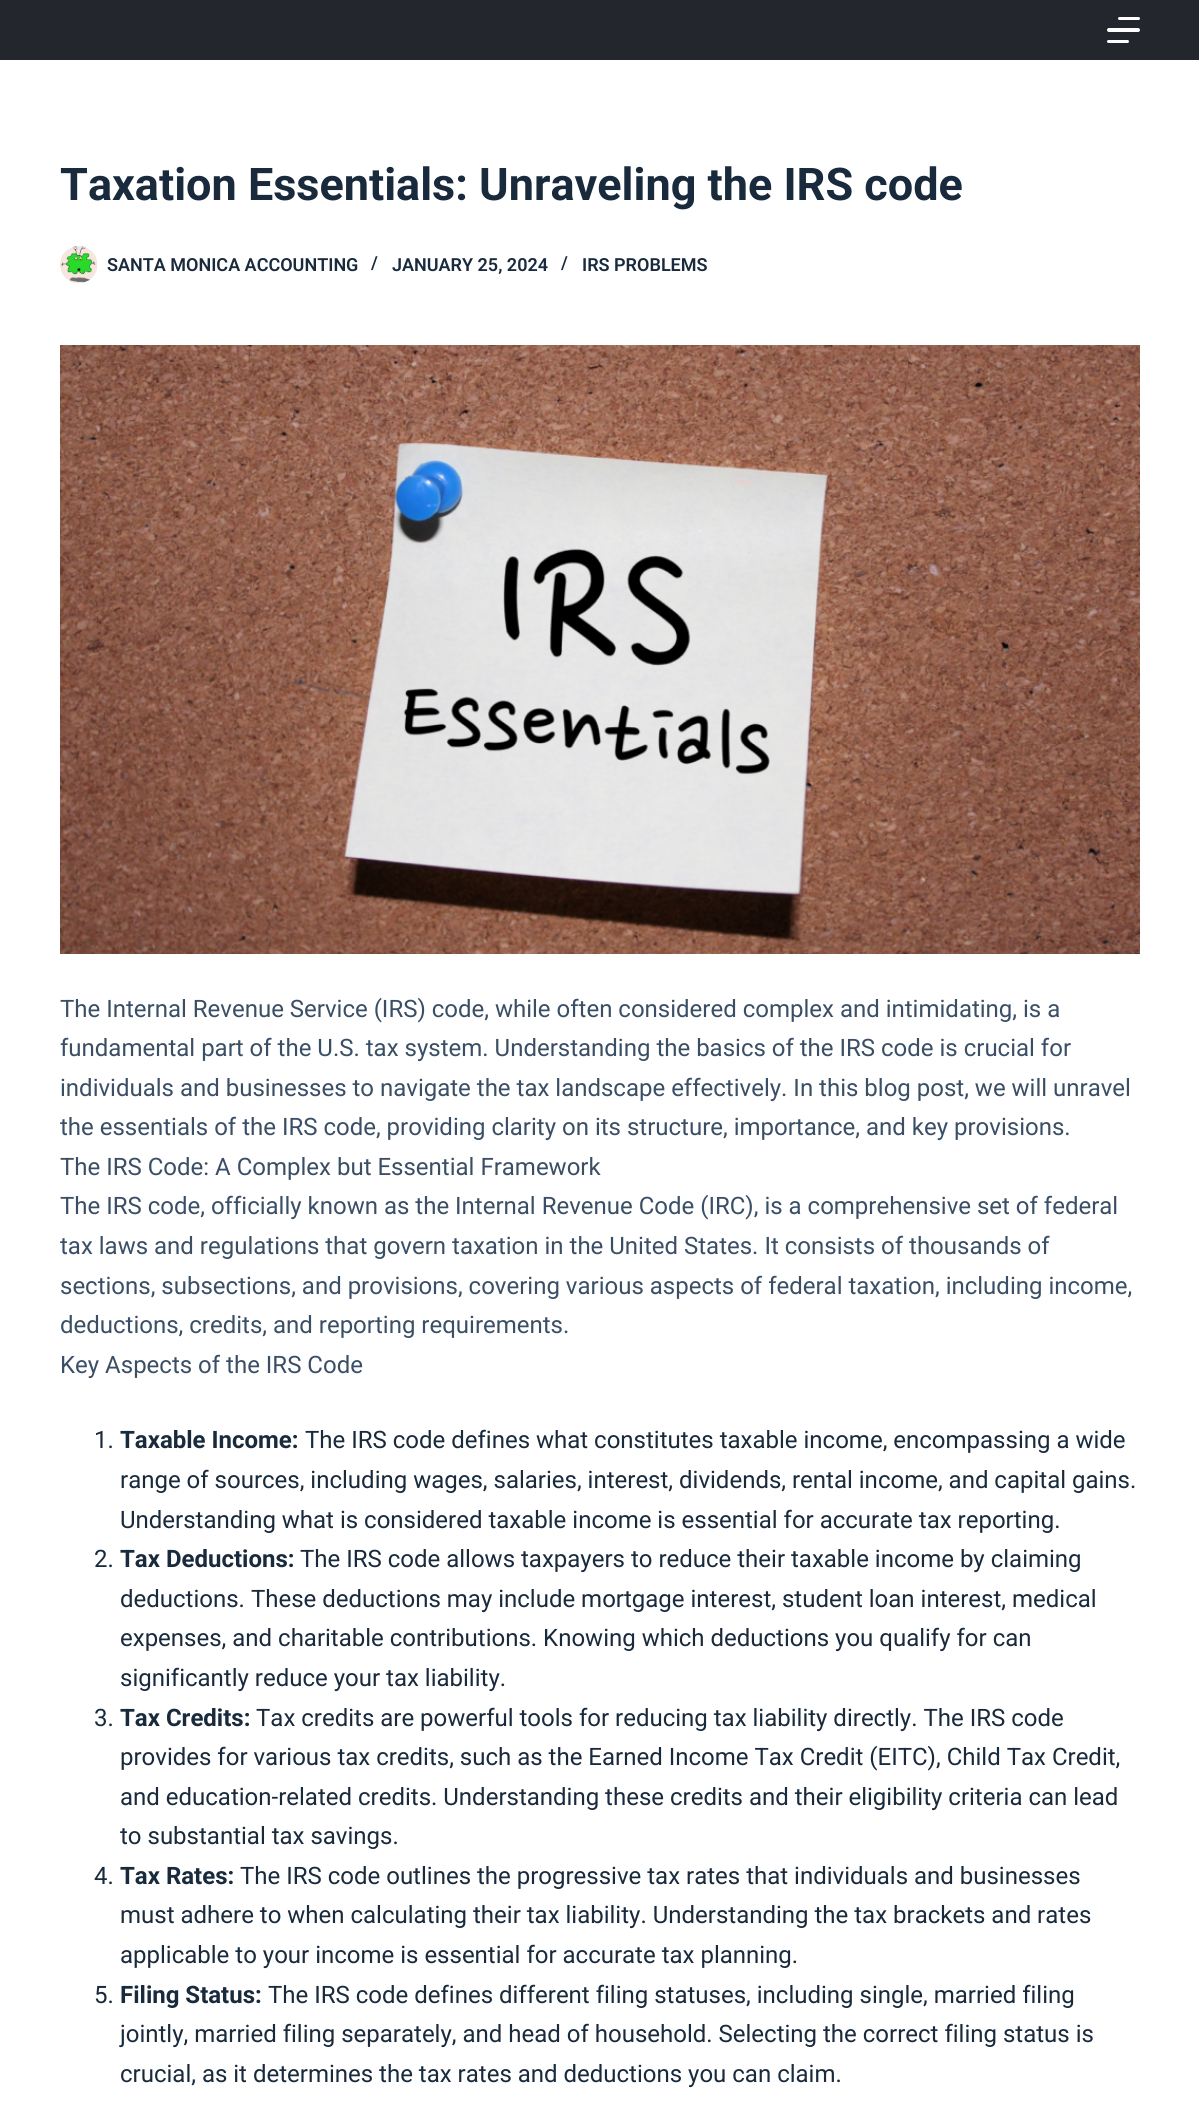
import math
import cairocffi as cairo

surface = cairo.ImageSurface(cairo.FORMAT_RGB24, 1199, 2104)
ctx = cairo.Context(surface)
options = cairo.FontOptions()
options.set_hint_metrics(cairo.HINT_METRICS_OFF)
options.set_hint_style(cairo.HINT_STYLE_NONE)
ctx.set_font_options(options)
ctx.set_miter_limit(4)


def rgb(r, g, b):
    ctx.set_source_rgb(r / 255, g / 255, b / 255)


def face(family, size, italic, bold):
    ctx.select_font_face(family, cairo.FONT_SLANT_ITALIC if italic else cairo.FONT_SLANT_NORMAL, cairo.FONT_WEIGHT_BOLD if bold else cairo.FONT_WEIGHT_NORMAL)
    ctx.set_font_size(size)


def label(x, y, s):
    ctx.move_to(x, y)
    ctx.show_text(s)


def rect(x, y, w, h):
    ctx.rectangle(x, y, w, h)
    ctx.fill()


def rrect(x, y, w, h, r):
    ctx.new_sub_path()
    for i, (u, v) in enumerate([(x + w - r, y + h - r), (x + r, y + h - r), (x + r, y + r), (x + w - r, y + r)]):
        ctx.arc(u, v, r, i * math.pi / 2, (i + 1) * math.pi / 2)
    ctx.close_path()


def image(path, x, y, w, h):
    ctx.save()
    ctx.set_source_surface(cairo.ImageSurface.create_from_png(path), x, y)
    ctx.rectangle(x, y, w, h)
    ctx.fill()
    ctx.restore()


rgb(255, 255, 255)
ctx.paint()
rgb(35, 38, 45)
rect(0, 0, 1199, 60)
rgb(255, 255, 255)
rrect(1118, 17, 22, 3, 1.5)
ctx.fill()
rrect(1107, 28, 33, 4, 2)
ctx.fill()
rrect(1107, 40, 22, 3, 1.5)
ctx.fill()
face('Roboto', 45, 0, 1)
rgb(25, 42, 61)
label(60, 200, 'Taxation Essentials: Unraveling the IRS code')
image('image0.png', 60, 246, 38, 38)
face('Roboto SemiBold', 18, 0, 0)
label(107, 271, 'SANTA MONICA ACCOUNTING')
label(371, 269, '/')
label(392, 271, 'JANUARY 25, 2024')
label(561, 269, '/')
label(582, 271, 'IRS PROBLEMS')
image('image1.png', 60, 345, 1080, 609)
face('Roboto', 24, 0, 0)
rgb(58, 79, 102)
label(60, 1017, 'The Internal Revenue Service (IRS) code, while often considered complex and intimidating, is a')
label(60, 1056, 'fundamental part of the U.S. tax system. Understanding the basics of the IRS code is crucial for')
label(60, 1096, 'individuals and businesses to navigate the tax landscape effectively. In this blog post, we will unravel')
label(60, 1135, 'the essentials of the IRS code, providing clarity on its structure, importance, and key provisions.')
label(60, 1175, 'The IRS Code: A Complex but Essential Framework')
label(60, 1214, 'The IRS code, officially known as the Internal Revenue Code (IRC), is a comprehensive set of federal')
label(60, 1254, 'tax laws and regulations that govern taxation in the United States. It consists of thousands of')
label(60, 1294, 'sections, subsections, and provisions, covering various aspects of federal taxation, including income,')
label(60, 1333, 'deductions, credits, and reporting requirements.')
label(60, 1373, 'Key Aspects of the IRS Code')
rgb(25, 42, 61)
label(94, 1448, '1.')
face('Roboto', 24, 0, 1)
label(120, 1448, 'Taxable Income:')
face('Roboto', 24, 0, 0)
label(305, 1448, 'The IRS code defines what constitutes taxable income, encompassing a wide')
label(120, 1488, 'range of sources, including wages, salaries, interest, dividends, rental income, and capital gains.')
label(120, 1528, 'Understanding what is considered taxable income is essential for accurate tax reporting.')
label(94, 1567, '2.')
face('Roboto', 24, 0, 1)
label(120, 1567, 'Tax Deductions:')
face('Roboto', 24, 0, 0)
label(300, 1567, 'The IRS code allows taxpayers to reduce their taxable income by claiming')
label(120, 1607, 'deductions. These deductions may include mortgage interest, student loan interest, medical')
label(120, 1646, 'expenses, and charitable contributions. Knowing which deductions you qualify for can')
label(120, 1686, 'significantly reduce your tax liability.')
label(94, 1726, '3.')
face('Roboto', 24, 0, 1)
label(120, 1726, 'Tax Credits:')
face('Roboto', 24, 0, 0)
label(256, 1726, 'Tax credits are powerful tools for reducing tax liability directly. The IRS code')
label(120, 1765, 'provides for various tax credits, such as the Earned Income Tax Credit (EITC), Child Tax Credit,')
label(120, 1805, 'and education-related credits. Understanding these credits and their eligibility criteria can lead')
label(120, 1844, 'to substantial tax savings.')
label(94, 1884, '4.')
face('Roboto', 24, 0, 1)
label(120, 1884, 'Tax Rates:')
face('Roboto', 24, 0, 0)
label(240, 1884, 'The IRS code outlines the progressive tax rates that individuals and businesses')
label(120, 1923, 'must adhere to when calculating their tax liability. Understanding the tax brackets and rates')
label(120, 1963, 'applicable to your income is essential for accurate tax planning.')
label(94, 2003, '5.')
face('Roboto', 24, 0, 1)
label(120, 2003, 'Filing Status:')
face('Roboto', 24, 0, 0)
label(268, 2003, 'The IRS code defines different filing statuses, including single, married filing')
label(120, 2042, 'jointly, married filing separately, and head of household. Selecting the correct filing status is')
label(120, 2082, 'crucial, as it determines the tax rates and deductions you can claim.')
surface.write_to_png('render.png')
